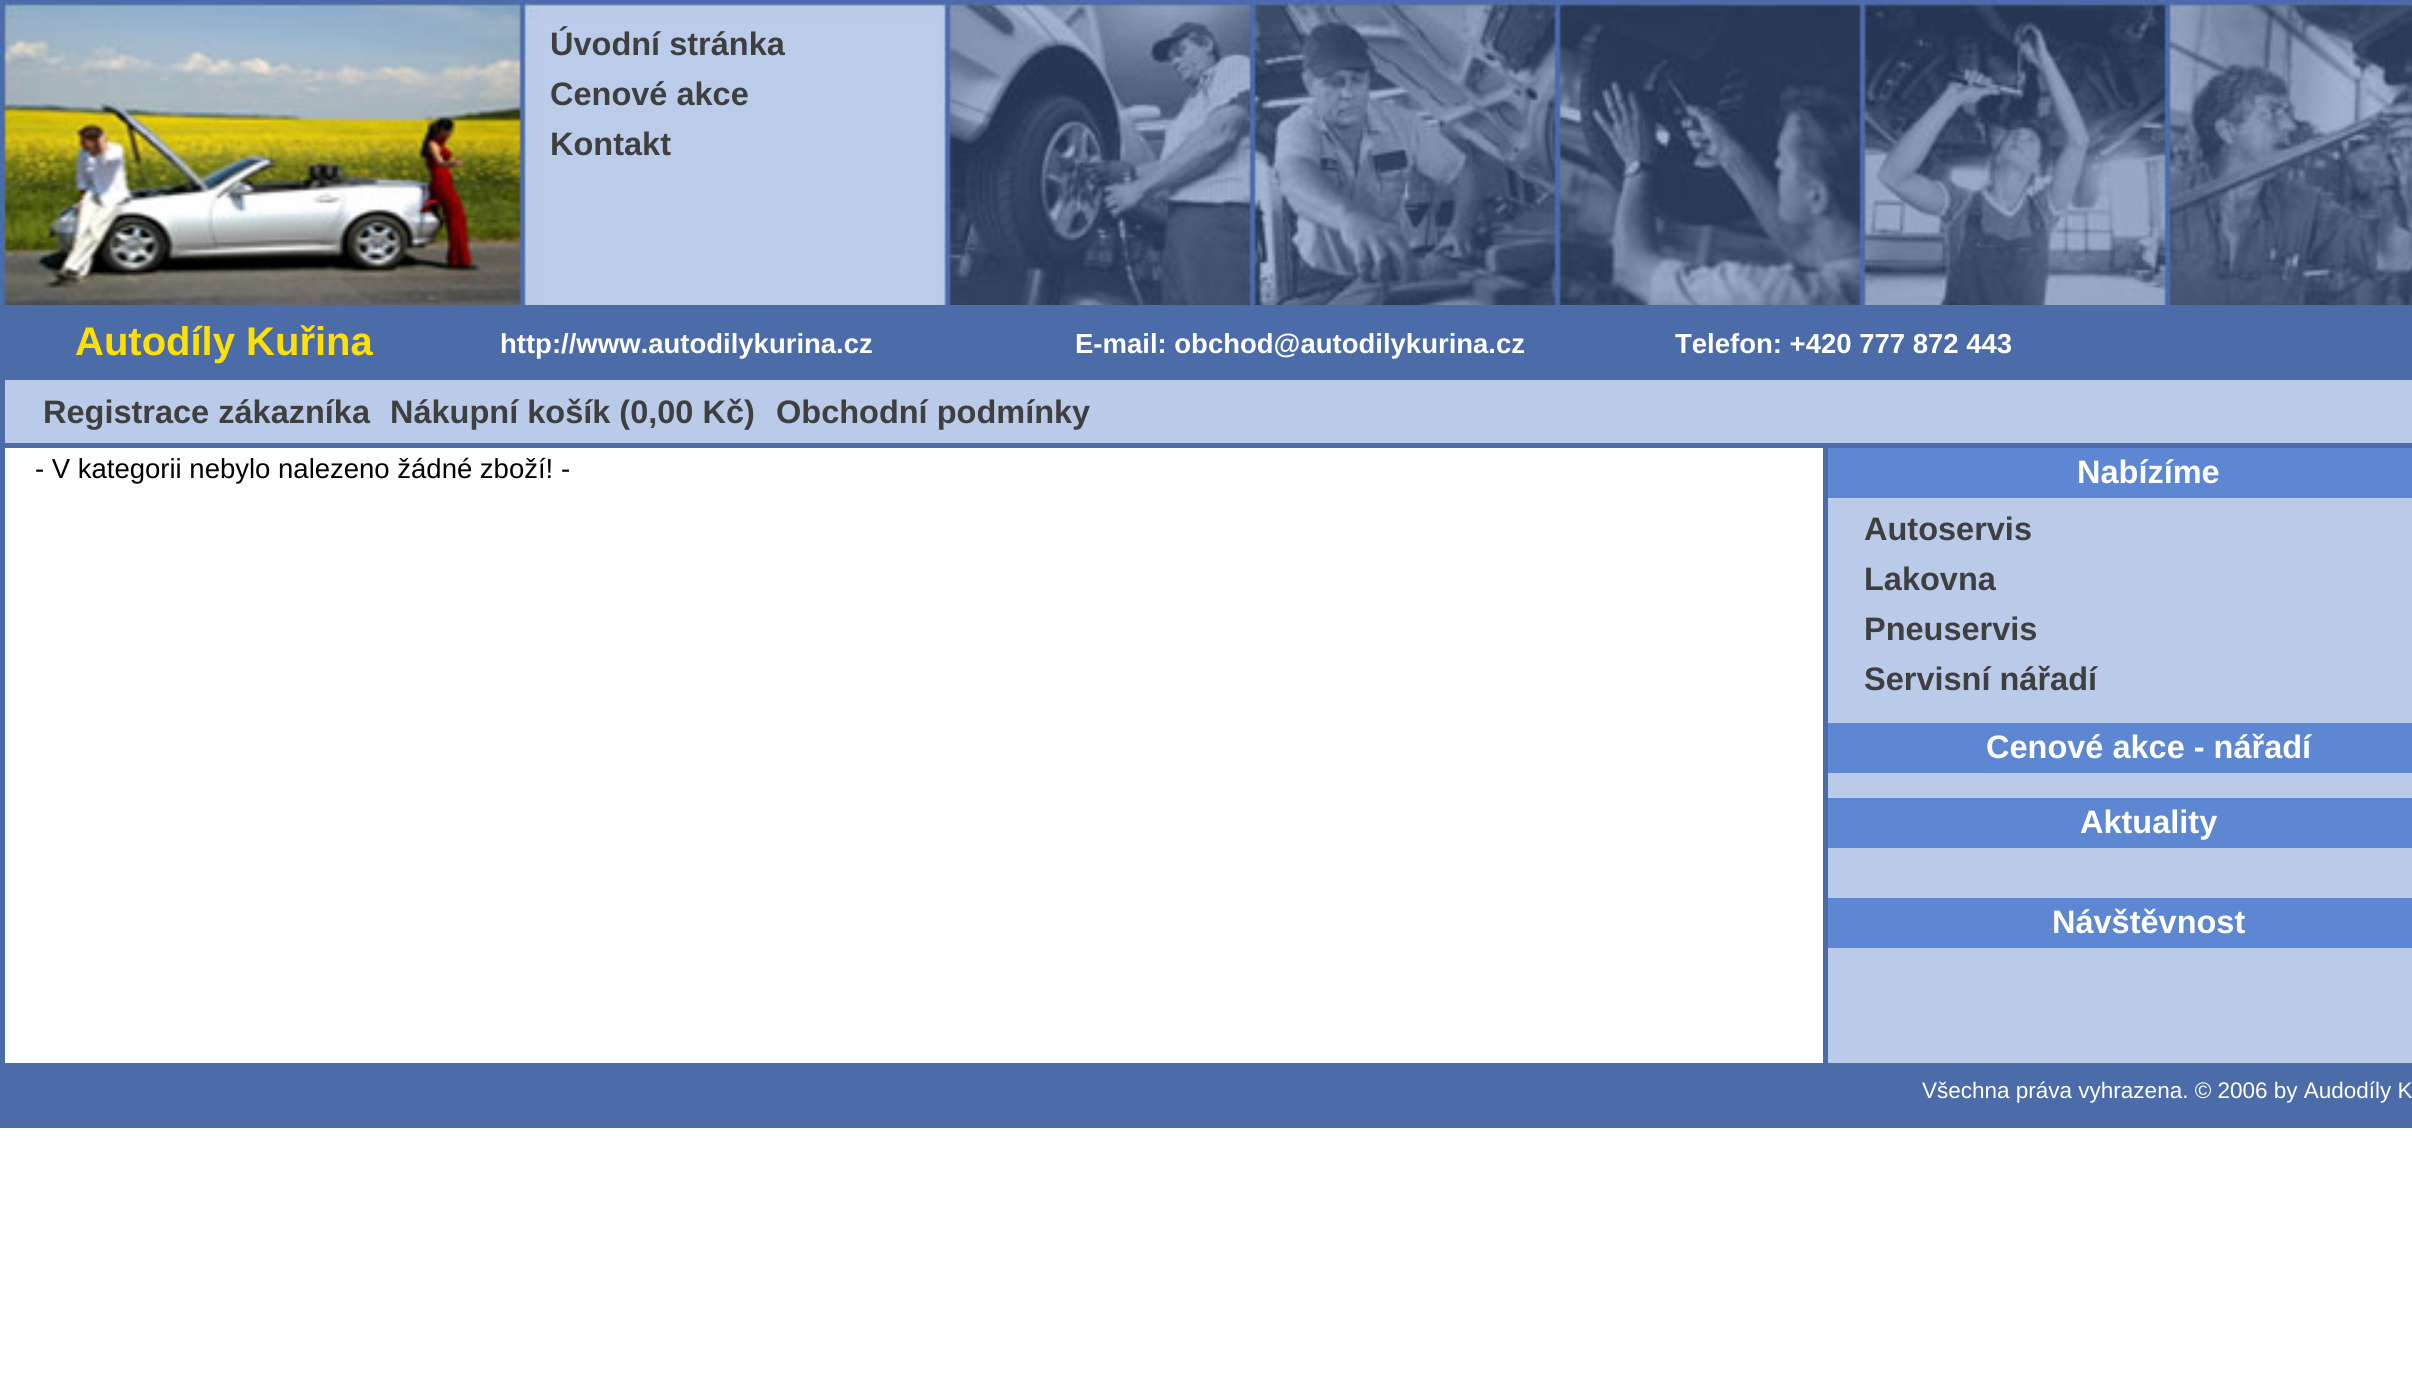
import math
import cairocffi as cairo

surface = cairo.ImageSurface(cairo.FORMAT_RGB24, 2412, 1396)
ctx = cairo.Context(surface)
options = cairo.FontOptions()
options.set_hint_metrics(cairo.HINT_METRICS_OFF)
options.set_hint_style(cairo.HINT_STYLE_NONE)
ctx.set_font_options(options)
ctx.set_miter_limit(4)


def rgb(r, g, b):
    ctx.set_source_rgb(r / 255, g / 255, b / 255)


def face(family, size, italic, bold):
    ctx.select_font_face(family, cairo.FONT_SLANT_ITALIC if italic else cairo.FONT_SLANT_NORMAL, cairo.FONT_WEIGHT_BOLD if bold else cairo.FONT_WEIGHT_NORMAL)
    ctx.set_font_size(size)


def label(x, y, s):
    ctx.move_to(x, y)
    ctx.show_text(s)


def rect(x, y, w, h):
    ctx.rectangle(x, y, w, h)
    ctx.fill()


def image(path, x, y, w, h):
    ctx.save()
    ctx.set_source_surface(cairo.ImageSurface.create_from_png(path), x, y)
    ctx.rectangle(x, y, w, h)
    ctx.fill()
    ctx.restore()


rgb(255, 255, 255)
ctx.paint()
image('image0.png', 0, 0, 2412, 305)
face('Liberation Sans', 32.5, 0, 1)
rgb(63, 63, 63)
label(550, 55, 'Úvodní stránka')
label(550, 105, 'Cenové akce')
label(550, 155, 'Kontakt')
rgb(76, 108, 169)
rect(0, 305, 2412, 75)
face('Liberation Sans', 40, 0, 1)
rgb(254, 225, 0)
label(75, 355, 'Autodíly Kuřina')
face('Liberation Sans', 27.5, 0, 1)
rgb(255, 255, 255)
label(500, 353, 'http://www.autodilykurina.cz')
label(1075, 353, 'E-mail: obchod@autodilykurina.cz')
label(1675, 353, 'Telefon: +420 777 872 443')
rgb(186, 203, 233)
rect(5, 380, 2407, 63)
rgb(76, 108, 169)
rect(0, 380, 5, 63)
face('Liberation Sans', 32.5, 0, 1)
rgb(63, 63, 63)
label(43, 423, 'Registrace zákazníka')
label(390, 423, 'Nákupní košík (0,00 Kč)')
label(776, 423, 'Obchodní podmínky')
rgb(76, 108, 169)
rect(0, 443, 2412, 5)
rect(0, 443, 5, 620)
face('Liberation Sans', 27.5, 0, 0)
rgb(0, 0, 0)
label(35, 478, '- V kategorii nebylo nalezeno žádné zboží! -')
rgb(186, 203, 233)
rect(1828, 498, 584, 565)
rgb(76, 108, 169)
rect(1823, 448, 5, 615)
rgb(93, 135, 210)
rect(1828, 448, 584, 50)
face('Liberation Sans', 32.5, 0, 1)
rgb(255, 255, 255)
label(2077, 483, 'Nabízíme')
rgb(63, 63, 63)
label(1864, 540, 'Autoservis')
label(1864, 590, 'Lakovna')
label(1864, 640, 'Pneuservis')
label(1864, 690, 'Servisní nářadí')
rgb(93, 135, 210)
rect(1828, 723, 584, 50)
rgb(255, 255, 255)
label(1986, 758, 'Cenové akce - nářadí')
rgb(93, 135, 210)
rect(1828, 798, 584, 50)
rgb(255, 255, 255)
label(2080, 833, 'Aktuality')
rgb(93, 135, 210)
rect(1828, 898, 584, 50)
rgb(255, 255, 255)
label(2052, 933, 'Návštěvnost')
rgb(76, 108, 169)
rect(0, 1063, 2412, 65)
face('Liberation Sans', 22.5, 0, 0)
rgb(255, 255, 255)
label(1922, 1098, 'Všechna práva vyhrazena. © 2006 by Audodíly K')
surface.write_to_png('render.png')
